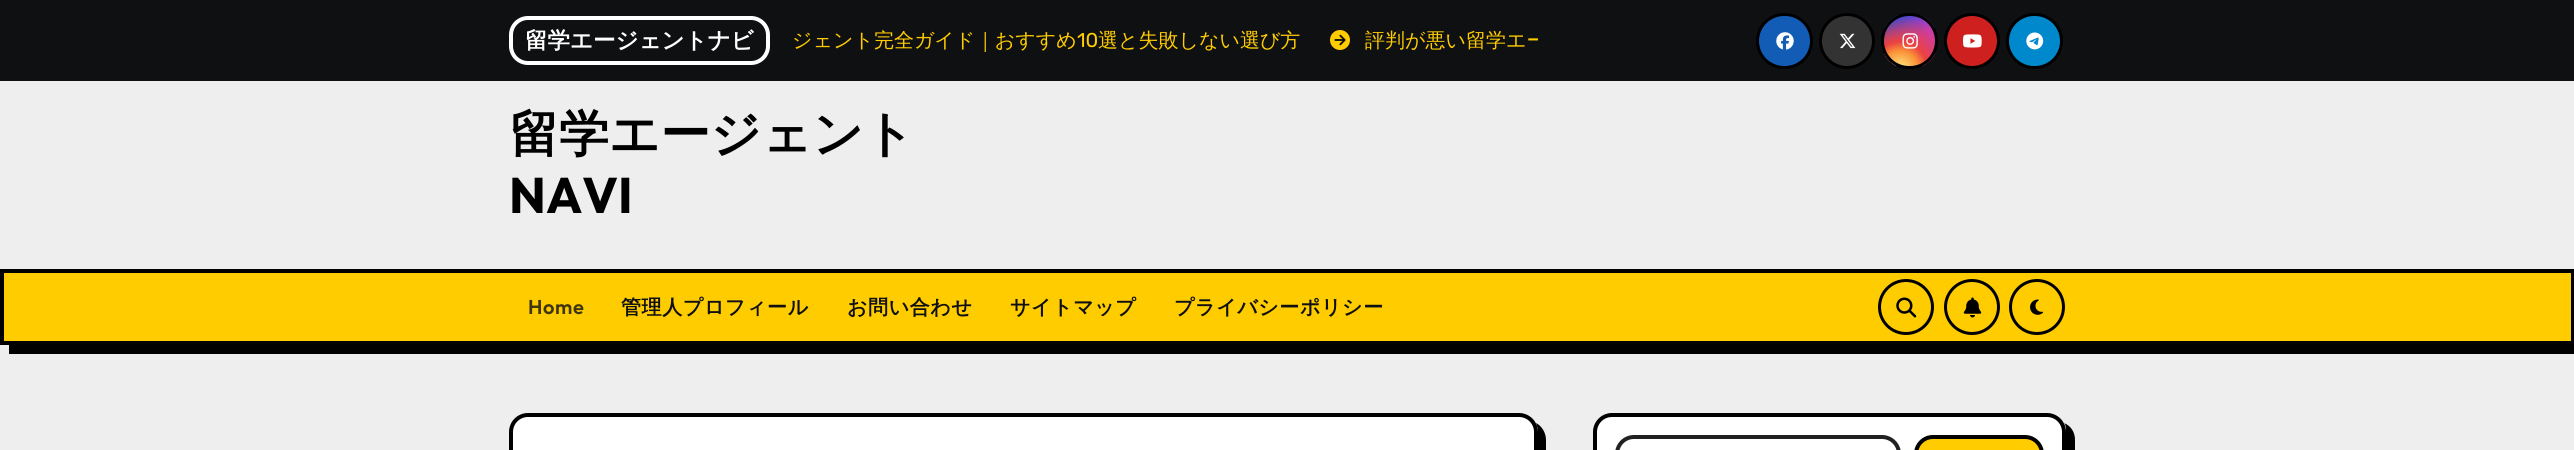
import math
import cairocffi as cairo

surface = cairo.ImageSurface(cairo.FORMAT_RGB24, 2574, 450)
ctx = cairo.Context(surface)
options = cairo.FontOptions()
options.set_hint_metrics(cairo.HINT_METRICS_OFF)
options.set_hint_style(cairo.HINT_STYLE_NONE)
ctx.set_font_options(options)
ctx.set_miter_limit(4)


def rgb(r, g, b):
    ctx.set_source_rgb(r / 255, g / 255, b / 255)


def face(family, size, italic, bold):
    ctx.select_font_face(family, cairo.FONT_SLANT_ITALIC if italic else cairo.FONT_SLANT_NORMAL, cairo.FONT_WEIGHT_BOLD if bold else cairo.FONT_WEIGHT_NORMAL)
    ctx.set_font_size(size)


def label(x, y, s):
    ctx.move_to(x, y)
    ctx.show_text(s)


def tracked(x, y, s, letter, word):
    ctx.move_to(x, y)
    for ch in s:
        ctx.show_text(ch)
        ctx.rel_move_to(letter + word * (ch == ' '), 0)


def rect(x, y, w, h):
    ctx.rectangle(x, y, w, h)
    ctx.fill()


def rrect(x, y, w, h, r):
    ctx.new_sub_path()
    for i, (u, v) in enumerate([(x + w - r, y + h - r), (x + r, y + h - r), (x + r, y + r), (x + w - r, y + r)]):
        ctx.arc(u, v, r, i * math.pi / 2, (i + 1) * math.pi / 2)
    ctx.close_path()


def image(path, x, y, w, h):
    ctx.save()
    ctx.set_source_surface(cairo.ImageSurface.create_from_png(path), x, y)
    ctx.rectangle(x, y, w, h)
    ctx.fill()
    ctx.restore()


rgb(238, 238, 238)
ctx.paint()
rgb(15, 16, 18)
rect(0, 0, 2574, 81)
rrect(511, 18, 257, 45, 17)
rgb(255, 255, 255)
ctx.set_line_width(4)
ctx.stroke()
face('WenQuanYi Zen Hei', 22.5, 0, 1)
label(525, 48, '留学エージェントナビ')
face('WenQuanYi Zen Hei Medium', 20, 0, 0)
rgb(255, 204, 0)
label(792, 47, 'ジェント完全ガイド｜おすすめ')
face('Rubik Light', 20, 0, 0)
label(1077, 47, '10')
face('WenQuanYi Zen Hei Medium', 20, 0, 0)
label(1098, 47, '選と失敗しない選び方')
image('image0.png', 1330, 30, 20, 20)
ctx.save()
ctx.rectangle(509, 23, 1029, 37)
ctx.clip()
label(1365, 47, '評判が悪い留学エー')
ctx.restore()
rgb(19, 92, 182)
rrect(1757.5, 14.5, 54, 53, 26.5)
ctx.fill_preserve()
rgb(0, 0, 0)
ctx.set_line_width(3)
ctx.stroke()
image('image1.png', 1776, 32, 18, 18)
rgb(51, 51, 51)
ctx.arc(1847, 41, 26.5, 0, 2 * math.pi)
ctx.fill_preserve()
rgb(0, 0, 0)
ctx.stroke()
image('image2.png', 1839, 33, 17, 16)
ctx.save()
rrect(1881, 13, 57, 56, 28)
ctx.clip()
gradient = cairo.LinearGradient(1884, 15, 1935, 66)
gradient.add_color_stop_rgba(0.12, 0.137, 0.294, 0.843, 1)
gradient.add_color_stop_rgba(0.58, 0.765, 0.235, 0.745, 1)
ctx.set_source(gradient)
rect(1884, 15, 51, 51)
gradient = cairo.RadialGradient(1900, 69, 0, 1900, 69, 65)
gradient.add_color_stop_rgba(0, 1, 0.882, 0.49, 1)
gradient.add_color_stop_rgba(0.1, 1, 0.804, 0.412, 1)
gradient.add_color_stop_rgba(0.28, 0.98, 0.569, 0.216, 1)
gradient.add_color_stop_rgba(0.42, 0.922, 0.255, 0.255, 1)
gradient.add_color_stop_rgba(0.82, 0.922, 0.255, 0.255, 0)
ctx.set_source(gradient)
rect(1884, 16, 51, 50)
ctx.restore()
rrect(1882.5, 14.5, 54, 53, 26.5)
ctx.stroke()
image('image3.png', 1902, 33, 16, 16)
rgb(205, 32, 31)
ctx.arc(1972, 41, 26.5, 0, 2 * math.pi)
ctx.fill_preserve()
rgb(0, 0, 0)
ctx.stroke()
image('image4.png', 1963, 34, 19, 14)
rgb(0, 136, 204)
rrect(2007.5, 14.5, 54, 53, 26.5)
ctx.fill_preserve()
rgb(0, 0, 0)
ctx.stroke()
image('image5.png', 2026, 32, 18, 18)
face('WenQuanYi Zen Hei', 50, 0, 1)
label(509, 151, '留学エージェント')
face('Outfit', 50, 0, 1)
label(509, 213, 'NAVI')
ctx.new_path()
ctx.move_to(9, 345)
ctx.line_to(9, 354)
ctx.line_to(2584, 354)
ctx.line_to(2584, 278)
ctx.line_to(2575, 278)
ctx.line_to(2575, 345)
ctx.close_path()
ctx.fill()
rgb(255, 204, 0)
ctx.rectangle(2, 271, 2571, 72)
ctx.fill_preserve()
rgb(0, 0, 0)
ctx.set_line_width(4)
ctx.stroke()
face('Outfit SemiBold', 20, 0, 0)
rgb(63, 54, 14)
tracked(528, 314, 'Home', 0.6, 0)
face('WenQuanYi Zen Hei', 20, 0, 1)
rgb(15, 16, 18)
tracked(621, 314, '管理人プロフィール', 0.6, 0)
tracked(847, 314, 'お問い合わせ', 0.6, 0)
tracked(1010, 314, 'サイトマップ', 0.6, 0)
tracked(1174, 314, 'プライバシーポリシー', 0.6, 0)
ctx.new_path()
ctx.arc(1906, 307, 26.5, 0, 2 * math.pi)
rgb(0, 0, 0)
ctx.set_line_width(3)
ctx.stroke()
image('image6.png', 1896, 297, 21, 21)
ctx.arc(1972, 307, 26.5, 0, 2 * math.pi)
ctx.stroke()
image('image7.png', 1963, 297, 19, 21)
ctx.arc(2037, 307, 26.5, 0, 2 * math.pi)
ctx.stroke()
image('image8.png', 2030, 299, 14, 16)
ctx.new_path()
ctx.move_to(520, 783)
ctx.curve_to(523, 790, 530, 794, 537, 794)
ctx.line_to(1527, 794)
ctx.curve_to(1537, 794, 1546, 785, 1546, 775)
ctx.line_to(1546, 440)
ctx.curve_to(1546, 433, 1542, 426, 1536, 423)
ctx.curve_to(1537, 426, 1538, 428, 1538, 431)
ctx.line_to(1538, 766)
ctx.curve_to(1538, 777, 1529, 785, 1519, 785)
ctx.line_to(528, 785)
ctx.curve_to(525, 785, 522, 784, 520, 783)
ctx.close_path()
ctx.fill()
rgb(255, 255, 255)
rrect(511, 415, 1025, 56, 17)
ctx.fill_preserve()
rgb(0, 0, 0)
ctx.set_line_width(4)
ctx.stroke()
ctx.new_path()
ctx.move_to(1603, 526)
ctx.curve_to(1606, 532, 1613, 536, 1620, 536)
ctx.line_to(2056, 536)
ctx.curve_to(2066, 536, 2075, 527, 2075, 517)
ctx.line_to(2075, 440)
ctx.curve_to(2075, 432, 2071, 426, 2064, 423)
ctx.curve_to(2066, 425, 2066, 428, 2066, 431)
ctx.line_to(2066, 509)
ctx.curve_to(2066, 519, 2058, 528, 2048, 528)
ctx.line_to(1611, 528)
ctx.curve_to(1608, 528, 1606, 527, 1603, 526)
ctx.close_path()
ctx.fill()
rgb(255, 255, 255)
rrect(1595, 415, 469, 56, 17)
ctx.fill_preserve()
rgb(0, 0, 0)
ctx.stroke()
rrect(1617, 437, 282, 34, 17)
rgb(33, 33, 33)
ctx.stroke()
rgb(255, 204, 0)
rrect(1916, 437, 126, 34, 17)
ctx.fill_preserve()
rgb(0, 0, 0)
ctx.stroke()
surface.write_to_png('render.png')
